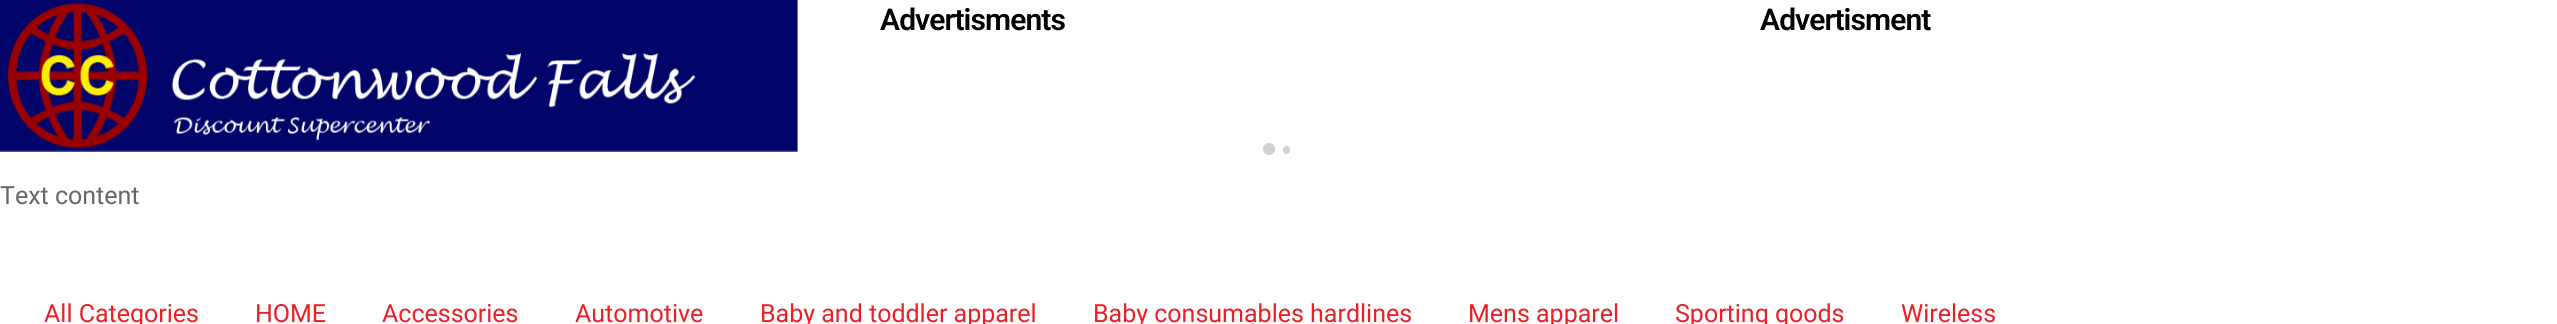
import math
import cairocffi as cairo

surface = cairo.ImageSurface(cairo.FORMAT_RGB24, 2557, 324)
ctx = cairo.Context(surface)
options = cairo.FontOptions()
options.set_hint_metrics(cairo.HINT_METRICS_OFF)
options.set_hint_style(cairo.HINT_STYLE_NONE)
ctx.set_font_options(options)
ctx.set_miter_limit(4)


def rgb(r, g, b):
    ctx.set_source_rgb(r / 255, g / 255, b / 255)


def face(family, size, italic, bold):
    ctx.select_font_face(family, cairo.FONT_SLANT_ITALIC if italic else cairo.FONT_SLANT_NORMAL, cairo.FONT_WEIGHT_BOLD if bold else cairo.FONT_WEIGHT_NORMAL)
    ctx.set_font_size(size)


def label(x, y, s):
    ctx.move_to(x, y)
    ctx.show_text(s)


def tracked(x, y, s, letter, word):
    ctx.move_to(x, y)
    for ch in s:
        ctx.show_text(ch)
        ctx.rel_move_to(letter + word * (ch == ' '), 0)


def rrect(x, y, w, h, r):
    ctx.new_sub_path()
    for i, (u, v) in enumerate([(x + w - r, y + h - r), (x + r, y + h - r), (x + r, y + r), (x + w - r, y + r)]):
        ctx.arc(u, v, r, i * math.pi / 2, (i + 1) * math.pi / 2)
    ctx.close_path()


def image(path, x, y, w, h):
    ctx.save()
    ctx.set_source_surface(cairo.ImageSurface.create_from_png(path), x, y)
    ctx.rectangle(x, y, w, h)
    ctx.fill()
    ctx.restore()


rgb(255, 255, 255)
ctx.paint()
face('Roboto SemiBold', 30, 0, 0)
rgb(0, 0, 0)
tracked(880, 30, 'Advertisments', -0.9, 0)
rgb(209, 209, 209)
ctx.new_path()
ctx.arc(1269, 149, 6, 0, 2 * math.pi)
ctx.fill()
rrect(1283, 146, 7, 8, 3.5)
ctx.fill()
rgb(0, 0, 0)
tracked(1760, 30, 'Advertisment', -0.9, 0)
image('image0.png', 0, 0, 798, 152)
face('Roboto', 25, 0, 0)
rgb(102, 102, 102)
label(0, 204, 'Text content')
rgb(237, 30, 36)
label(44, 322, 'All Categories')
label(255, 322, 'HOME')
label(382, 322, 'Accessories')
label(575, 322, 'Automotive')
label(760, 322, 'Baby and toddler apparel')
label(1093, 322, 'Baby consumables hardlines')
label(1468, 322, 'Mens apparel')
label(1675, 322, 'Sporting goods')
label(1901, 322, 'Wireless')
surface.write_to_png('render.png')
